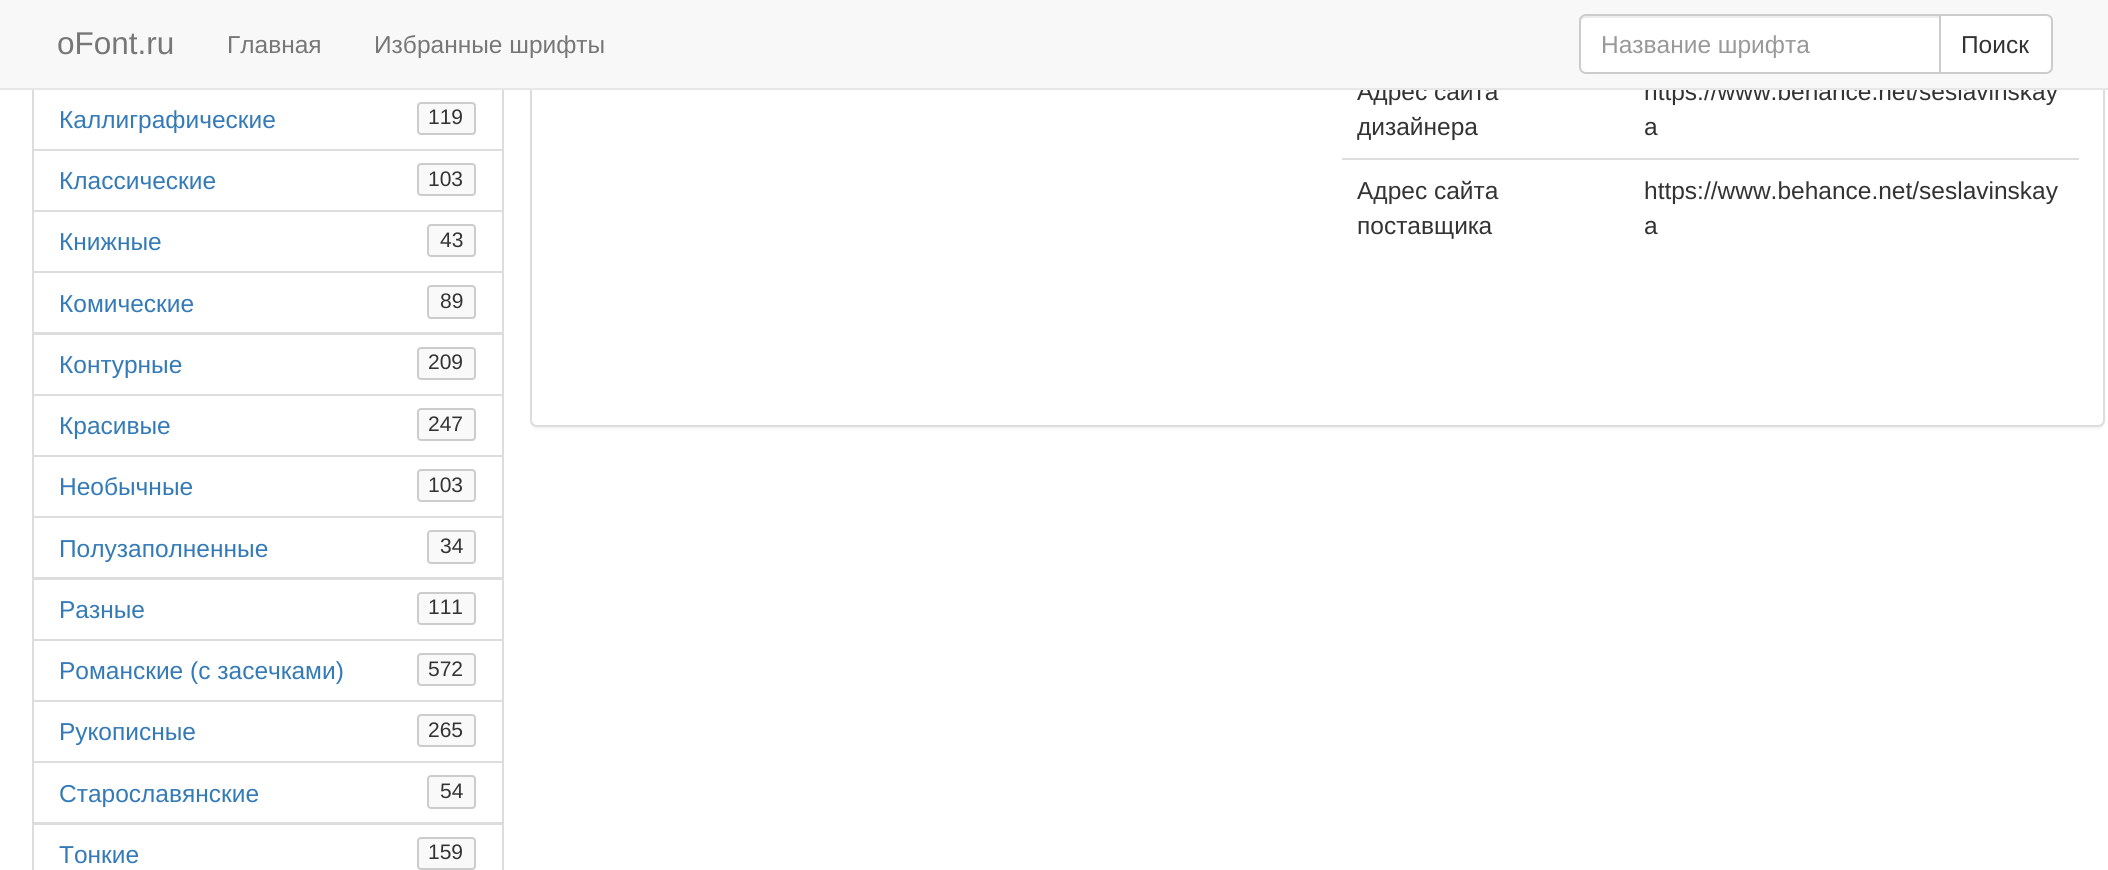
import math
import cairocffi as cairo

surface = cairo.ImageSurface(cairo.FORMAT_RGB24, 2108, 870)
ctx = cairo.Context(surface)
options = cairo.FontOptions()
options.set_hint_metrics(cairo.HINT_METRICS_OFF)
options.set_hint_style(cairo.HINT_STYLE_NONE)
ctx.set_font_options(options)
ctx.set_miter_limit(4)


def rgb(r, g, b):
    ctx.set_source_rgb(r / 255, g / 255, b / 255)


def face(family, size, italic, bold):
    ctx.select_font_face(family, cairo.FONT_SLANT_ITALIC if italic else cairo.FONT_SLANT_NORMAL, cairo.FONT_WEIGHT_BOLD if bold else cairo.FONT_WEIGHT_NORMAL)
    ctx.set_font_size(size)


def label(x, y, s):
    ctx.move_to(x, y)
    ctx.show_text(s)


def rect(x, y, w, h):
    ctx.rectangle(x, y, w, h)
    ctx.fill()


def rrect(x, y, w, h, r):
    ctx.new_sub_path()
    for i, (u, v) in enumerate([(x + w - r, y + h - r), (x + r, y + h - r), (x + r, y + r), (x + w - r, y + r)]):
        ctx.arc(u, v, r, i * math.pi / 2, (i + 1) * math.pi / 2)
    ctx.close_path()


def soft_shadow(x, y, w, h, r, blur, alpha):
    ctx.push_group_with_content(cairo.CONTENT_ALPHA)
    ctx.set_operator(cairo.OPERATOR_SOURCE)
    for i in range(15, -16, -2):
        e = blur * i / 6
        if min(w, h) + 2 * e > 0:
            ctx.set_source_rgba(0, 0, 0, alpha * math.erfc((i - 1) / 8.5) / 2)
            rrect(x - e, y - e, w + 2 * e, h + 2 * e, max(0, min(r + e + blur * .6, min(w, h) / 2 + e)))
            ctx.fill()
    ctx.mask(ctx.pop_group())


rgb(255, 255, 255)
ctx.paint()
rgb(0, 0, 0)
soft_shadow(530, -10, 1575, 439, 7, 1, 0.05)
rgb(255, 255, 255)
rrect(531, -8, 1573, 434, 6)
ctx.fill_preserve()
rgb(221, 221, 221)
ctx.stroke()
face('Liberation Sans', 24.5, 0, 0)
rgb(51, 51, 51)
label(1357, 100, 'Адрес сайта')
label(1644, 100, 'https://www.behance.net/seslavinskay')
rgb(248, 248, 248)
rect(0, 0, 2108, 88)
ctx.rectangle(33, 89, 470, 61)
rgb(221, 221, 221)
ctx.stroke()
rgb(231, 231, 231)
rect(0, 88, 2108, 2)
face('Liberation Sans', 31.5, 0, 0)
rgb(119, 119, 119)
label(57, 54, 'oFont.ru')
face('Liberation Sans', 24.5, 0, 0)
label(227, 53, 'Главная')
label(374, 53, 'Избранные шрифты')
rgb(255, 255, 255)
ctx.new_path()
ctx.move_to(1940, 15)
ctx.line_to(2046, 15)
ctx.curve_to(2049.5, 15, 2052, 17.5, 2052, 21)
ctx.line_to(2052, 67)
ctx.curve_to(2052, 70.5, 2049.5, 73, 2046, 73)
ctx.line_to(1940, 73)
ctx.close_path()
ctx.fill_preserve()
rgb(204, 204, 204)
ctx.stroke()
rgb(255, 255, 255)
ctx.new_path()
ctx.move_to(1586, 14)
ctx.line_to(1941, 14)
ctx.line_to(1941, 74)
ctx.line_to(1586, 74)
ctx.curve_to(1582, 74, 1579, 71, 1579, 67)
ctx.line_to(1579, 21)
ctx.curve_to(1579, 17, 1582, 14, 1586, 14)
ctx.close_path()
ctx.fill()
rgb(236, 236, 236)
ctx.new_path()
ctx.move_to(1586, 18)
ctx.line_to(1939, 18)
ctx.line_to(1939, 16)
ctx.line_to(1585, 16)
ctx.curve_to(1581, 16, 1580, 20, 1580, 23)
ctx.curve_to(1580, 20, 1583, 18, 1586, 18)
ctx.close_path()
ctx.fill()
ctx.new_path()
ctx.move_to(1586, 15)
ctx.line_to(1940, 15)
ctx.line_to(1940, 73)
ctx.line_to(1586, 73)
ctx.curve_to(1582.5, 73, 1580, 70.5, 1580, 67)
ctx.line_to(1580, 21)
ctx.curve_to(1580, 17.5, 1582.5, 15, 1586, 15)
ctx.close_path()
rgb(204, 204, 204)
ctx.stroke()
ctx.save()
ctx.rectangle(1601, 30, 317, 28)
ctx.clip()
rgb(153, 153, 153)
label(1601, 53, 'Название шрифта')
ctx.restore()
rgb(51, 51, 51)
label(1961, 53, 'Поиск')
rgb(51, 122, 183)
label(59, 128, 'Каллиграфические')
rgb(249, 249, 249)
rrect(418, 103, 57, 31, 3)
ctx.fill_preserve()
rgb(204, 204, 204)
ctx.stroke()
face('Liberation Sans', 21, 0, 0)
rgb(51, 51, 51)
label(428, 124, '119')
ctx.rectangle(33, 150, 470, 61)
rgb(221, 221, 221)
ctx.stroke()
face('Liberation Sans', 24.5, 0, 0)
rgb(51, 122, 183)
label(59, 189, 'Классические')
rgb(249, 249, 249)
rrect(418, 164, 57, 31, 3)
ctx.fill_preserve()
rgb(204, 204, 204)
ctx.stroke()
face('Liberation Sans', 21, 0, 0)
rgb(51, 51, 51)
label(428, 186, '103')
ctx.rectangle(33, 211, 470, 61)
rgb(221, 221, 221)
ctx.stroke()
face('Liberation Sans', 24.5, 0, 0)
rgb(51, 122, 183)
label(59, 250, 'Книжные')
rgb(249, 249, 249)
rrect(428, 225, 47, 31, 3)
ctx.fill_preserve()
rgb(204, 204, 204)
ctx.stroke()
face('Liberation Sans', 21, 0, 0)
rgb(51, 51, 51)
label(440, 247, '43')
ctx.rectangle(33, 272, 470, 61)
rgb(221, 221, 221)
ctx.stroke()
face('Liberation Sans', 24.5, 0, 0)
rgb(51, 122, 183)
label(59, 312, 'Комические')
rgb(249, 249, 249)
rrect(428, 286, 47, 32, 3)
ctx.fill_preserve()
rgb(204, 204, 204)
ctx.stroke()
face('Liberation Sans', 21, 0, 0)
rgb(51, 51, 51)
label(440, 308, '89')
ctx.rectangle(33, 334, 470, 61)
rgb(221, 221, 221)
ctx.stroke()
face('Liberation Sans', 24.5, 0, 0)
rgb(51, 122, 183)
label(59, 373, 'Контурные')
rgb(249, 249, 249)
rrect(418, 348, 57, 31, 3)
ctx.fill_preserve()
rgb(204, 204, 204)
ctx.stroke()
face('Liberation Sans', 21, 0, 0)
rgb(51, 51, 51)
label(428, 369, '209')
ctx.rectangle(33, 395, 470, 61)
rgb(221, 221, 221)
ctx.stroke()
face('Liberation Sans', 24.5, 0, 0)
rgb(51, 122, 183)
label(59, 434, 'Красивые')
rgb(249, 249, 249)
rrect(418, 409, 57, 31, 3)
ctx.fill_preserve()
rgb(204, 204, 204)
ctx.stroke()
face('Liberation Sans', 21, 0, 0)
rgb(51, 51, 51)
label(428, 431, '247')
ctx.rectangle(33, 456, 470, 61)
rgb(221, 221, 221)
ctx.stroke()
face('Liberation Sans', 24.5, 0, 0)
rgb(51, 122, 183)
label(59, 495, 'Необычные')
rgb(249, 249, 249)
rrect(418, 470, 57, 31, 3)
ctx.fill_preserve()
rgb(204, 204, 204)
ctx.stroke()
face('Liberation Sans', 21, 0, 0)
rgb(51, 51, 51)
label(428, 492, '103')
ctx.rectangle(33, 517, 470, 61)
rgb(221, 221, 221)
ctx.stroke()
face('Liberation Sans', 24.5, 0, 0)
rgb(51, 122, 183)
label(59, 557, 'Полузаполненные')
rgb(249, 249, 249)
rrect(428, 531, 47, 32, 3)
ctx.fill_preserve()
rgb(204, 204, 204)
ctx.stroke()
face('Liberation Sans', 21, 0, 0)
rgb(51, 51, 51)
label(440, 553, '34')
ctx.rectangle(33, 579, 470, 61)
rgb(221, 221, 221)
ctx.stroke()
face('Liberation Sans', 24.5, 0, 0)
rgb(51, 122, 183)
label(59, 618, 'Разные')
rgb(249, 249, 249)
rrect(418, 593, 57, 31, 3)
ctx.fill_preserve()
rgb(204, 204, 204)
ctx.stroke()
face('Liberation Sans', 21, 0, 0)
rgb(51, 51, 51)
label(428, 614, '111')
ctx.rectangle(33, 640, 470, 61)
rgb(221, 221, 221)
ctx.stroke()
face('Liberation Sans', 24.5, 0, 0)
rgb(51, 122, 183)
label(59, 679, 'Романские (с засечками)')
rgb(249, 249, 249)
rrect(418, 654, 57, 31, 3)
ctx.fill_preserve()
rgb(204, 204, 204)
ctx.stroke()
face('Liberation Sans', 21, 0, 0)
rgb(51, 51, 51)
label(428, 676, '572')
ctx.rectangle(33, 701, 470, 61)
rgb(221, 221, 221)
ctx.stroke()
face('Liberation Sans', 24.5, 0, 0)
rgb(51, 122, 183)
label(59, 740, 'Рукописные')
rgb(249, 249, 249)
rrect(418, 715, 57, 31, 3)
ctx.fill_preserve()
rgb(204, 204, 204)
ctx.stroke()
face('Liberation Sans', 21, 0, 0)
rgb(51, 51, 51)
label(428, 737, '265')
ctx.rectangle(33, 762, 470, 61)
rgb(221, 221, 221)
ctx.stroke()
face('Liberation Sans', 24.5, 0, 0)
rgb(51, 122, 183)
label(59, 802, 'Старославянские')
rgb(249, 249, 249)
rrect(428, 776, 47, 32, 3)
ctx.fill_preserve()
rgb(204, 204, 204)
ctx.stroke()
face('Liberation Sans', 21, 0, 0)
rgb(51, 51, 51)
label(440, 798, '54')
ctx.rectangle(33, 824, 470, 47)
rgb(221, 221, 221)
ctx.stroke()
face('Liberation Sans', 24.5, 0, 0)
rgb(51, 122, 183)
label(59, 863, 'Тонкие')
rgb(249, 249, 249)
rrect(418, 838, 57, 31, 3)
ctx.fill_preserve()
rgb(204, 204, 204)
ctx.stroke()
face('Liberation Sans', 21, 0, 0)
rgb(51, 51, 51)
label(428, 859, '159')
face('Liberation Sans', 24.5, 0, 0)
label(1357, 135, 'дизайнера')
label(1644, 135, 'a')
label(1357, 199, 'Адрес сайта')
label(1357, 234, 'поставщика')
rgb(221, 221, 221)
rect(1342, 158, 737, 2)
rgb(51, 51, 51)
label(1644, 199, 'https://www.behance.net/seslavinskay')
label(1644, 234, 'a')
surface.write_to_png('render.png')
